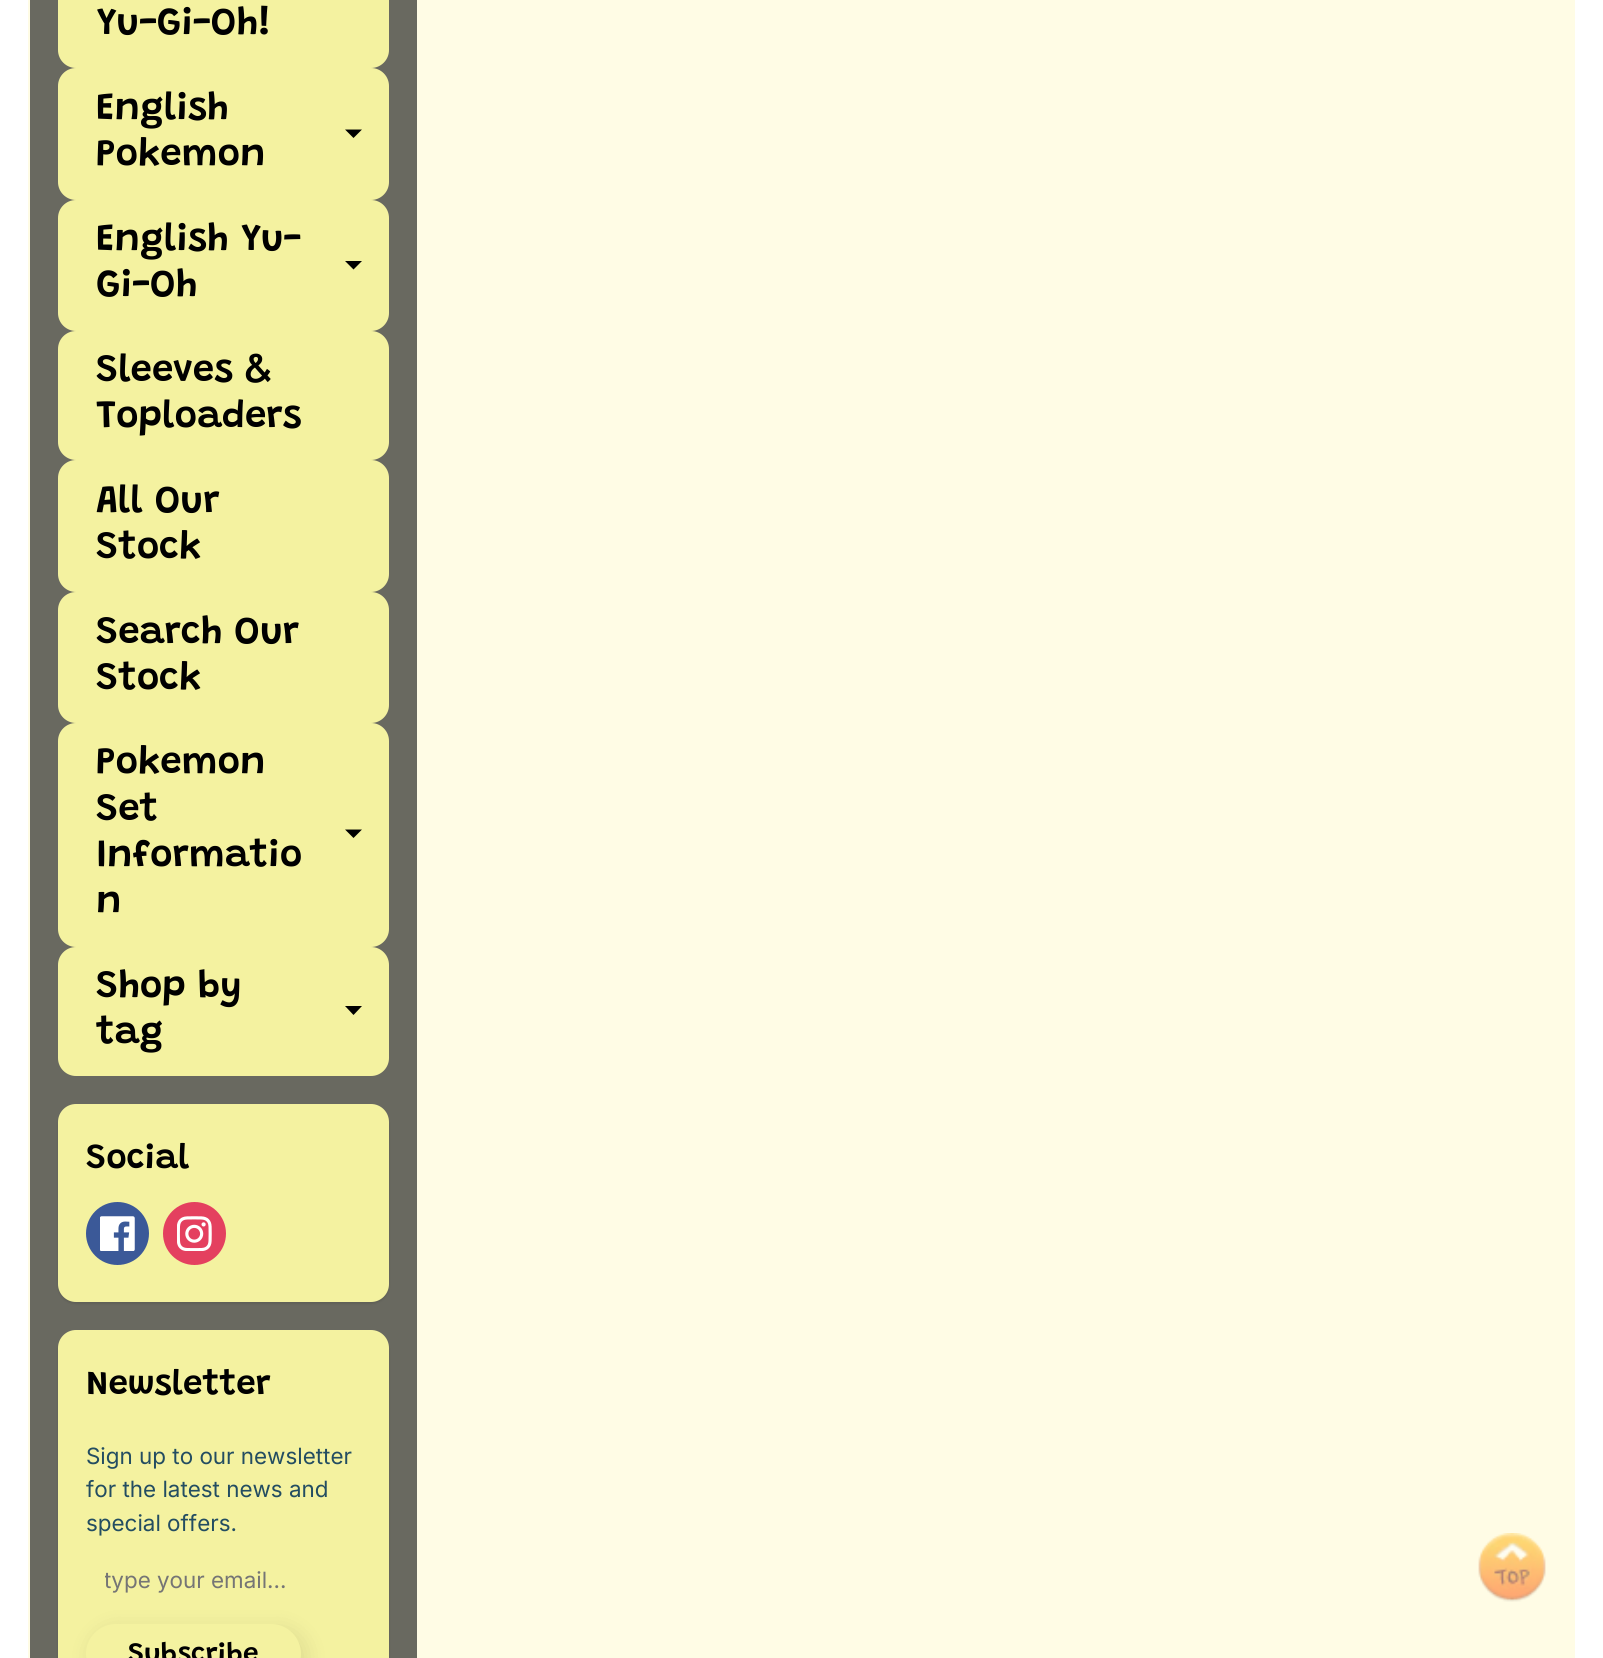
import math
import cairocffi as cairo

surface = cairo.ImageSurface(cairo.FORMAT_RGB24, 1603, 1658)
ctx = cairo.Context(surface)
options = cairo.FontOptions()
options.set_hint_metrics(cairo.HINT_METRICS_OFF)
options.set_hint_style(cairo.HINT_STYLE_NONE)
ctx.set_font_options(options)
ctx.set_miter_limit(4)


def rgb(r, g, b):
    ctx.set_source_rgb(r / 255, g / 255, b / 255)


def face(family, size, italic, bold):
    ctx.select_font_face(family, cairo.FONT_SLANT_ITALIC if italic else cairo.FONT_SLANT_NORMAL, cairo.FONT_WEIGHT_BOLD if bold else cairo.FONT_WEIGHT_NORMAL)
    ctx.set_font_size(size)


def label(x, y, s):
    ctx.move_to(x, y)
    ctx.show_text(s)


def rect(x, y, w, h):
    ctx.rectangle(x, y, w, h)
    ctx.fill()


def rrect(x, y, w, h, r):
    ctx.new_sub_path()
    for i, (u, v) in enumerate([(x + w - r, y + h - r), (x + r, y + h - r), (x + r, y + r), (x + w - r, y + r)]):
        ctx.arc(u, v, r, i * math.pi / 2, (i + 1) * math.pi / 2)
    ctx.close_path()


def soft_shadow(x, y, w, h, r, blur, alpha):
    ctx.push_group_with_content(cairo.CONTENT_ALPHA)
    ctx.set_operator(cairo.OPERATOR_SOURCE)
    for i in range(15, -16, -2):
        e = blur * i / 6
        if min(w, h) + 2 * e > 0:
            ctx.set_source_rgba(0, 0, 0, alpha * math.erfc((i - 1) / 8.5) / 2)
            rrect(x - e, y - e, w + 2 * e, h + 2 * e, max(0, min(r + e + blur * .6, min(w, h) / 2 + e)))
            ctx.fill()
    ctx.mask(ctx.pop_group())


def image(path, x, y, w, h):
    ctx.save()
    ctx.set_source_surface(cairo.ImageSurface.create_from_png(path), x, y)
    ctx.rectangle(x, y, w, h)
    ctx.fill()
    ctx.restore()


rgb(255, 255, 255)
ctx.paint()
rgb(255, 252, 229)
rect(28, 0, 1547, 1658)
rgb(105, 105, 96)
rect(30, 0, 387, 1658)
rgb(244, 242, 160)
rrect(58, -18, 331, 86, 18)
ctx.fill()
face('Grandstander SemiBold', 38.5, 0, 0)
rgb(0, 0, 0)
label(96, 34, 'Yu-Gi-Oh!')
rgb(244, 242, 160)
rrect(58, 68, 331, 132, 18)
ctx.fill()
rgb(0, 0, 0)
label(96, 119, 'English')
ctx.new_path()
ctx.move_to(345, 129.5)
ctx.line_to(362, 129.5)
ctx.line_to(353.5, 138)
ctx.close_path()
ctx.fill()
label(96, 165, 'Pokemon')
rgb(244, 242, 160)
rrect(58, 200, 331, 131, 18)
ctx.fill()
rgb(0, 0, 0)
label(96, 250, 'English Yu-')
ctx.new_path()
ctx.move_to(345, 261)
ctx.line_to(362, 261)
ctx.line_to(353.5, 269.5)
ctx.close_path()
ctx.fill()
label(96, 296, 'Gi-Oh')
rgb(244, 242, 160)
rrect(58, 331, 331, 129, 18)
ctx.fill()
rgb(0, 0, 0)
label(96, 381, 'Sleeves &')
label(96, 427, 'Toploaders')
rgb(244, 242, 160)
rrect(58, 460, 331, 132, 18)
ctx.fill()
rgb(0, 0, 0)
label(96, 512, 'All Our')
label(96, 558, 'Stock')
rgb(244, 242, 160)
rrect(58, 592, 331, 131, 18)
ctx.fill()
rgb(0, 0, 0)
label(96, 643, 'Search Our')
label(96, 689, 'Stock')
rgb(244, 242, 160)
rrect(58, 723, 331, 224, 18)
ctx.fill()
rgb(0, 0, 0)
label(96, 773, 'Pokemon')
label(96, 820, 'Set')
ctx.new_path()
ctx.move_to(345, 829.5)
ctx.line_to(362, 829.5)
ctx.line_to(353.5, 838)
ctx.close_path()
ctx.fill()
label(96, 866, 'Informatio')
label(96, 912, 'n')
rgb(244, 242, 160)
rrect(58, 947, 331, 129, 18)
ctx.fill()
rgb(0, 0, 0)
label(96, 997, 'Shop by')
ctx.new_path()
ctx.move_to(345, 1006)
ctx.line_to(362, 1006)
ctx.line_to(353.5, 1015)
ctx.close_path()
ctx.fill()
label(96, 1043, 'tag')
rgb(0, 0, 0)
soft_shadow(58, 1106, 331, 198, 18, 1, 0.1)
rgb(244, 242, 160)
rrect(58, 1104, 331, 198, 18)
ctx.fill()
face('Grandstander SemiBold', 35, 0, 0)
rgb(0, 0, 0)
label(86, 1168, 'Social')
rgb(59, 89, 152)
ctx.new_path()
ctx.arc(117.5, 1233.5, 31.5, 0, 2 * math.pi)
ctx.fill()
image('image0.png', 100, 1216, 35, 35)
rgb(228, 64, 95)
ctx.arc(194.5, 1233.5, 31.5, 0, 2 * math.pi)
ctx.fill()
image('image1.png', 177, 1216, 35, 35)
rgb(0, 0, 0)
soft_shadow(58, 1332, 331, 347, 18, 1, 0.1)
rgb(244, 242, 160)
rrect(58, 1330, 331, 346, 18)
ctx.fill()
rgb(0, 0, 0)
label(86, 1394, 'Newsletter')
face('Inter', 22.4, 0, 0)
rgb(35, 77, 97)
label(86, 1464, 'Sign up to our newsletter')
label(86, 1497, 'for the latest news and')
label(86, 1531, 'special offers.')
ctx.save()
ctx.rectangle(105, 1568, 242, 26)
ctx.clip()
rgb(117, 117, 117)
label(104, 1588, 'type your email...')
ctx.restore()
rgb(0, 0, 0)
soft_shadow(91, 1629, 215, 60, 30, 10.5, 0.1)
rgb(244, 242, 160)
rrect(86, 1624, 215, 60, 30)
ctx.fill()
face('Grandstander SemiBold', 28, 0, 0)
rgb(0, 0, 0)
label(128, 1662, 'Subscribe')
image('image2.png', 1478, 1533, 68, 69)
surface.write_to_png('render.png')
